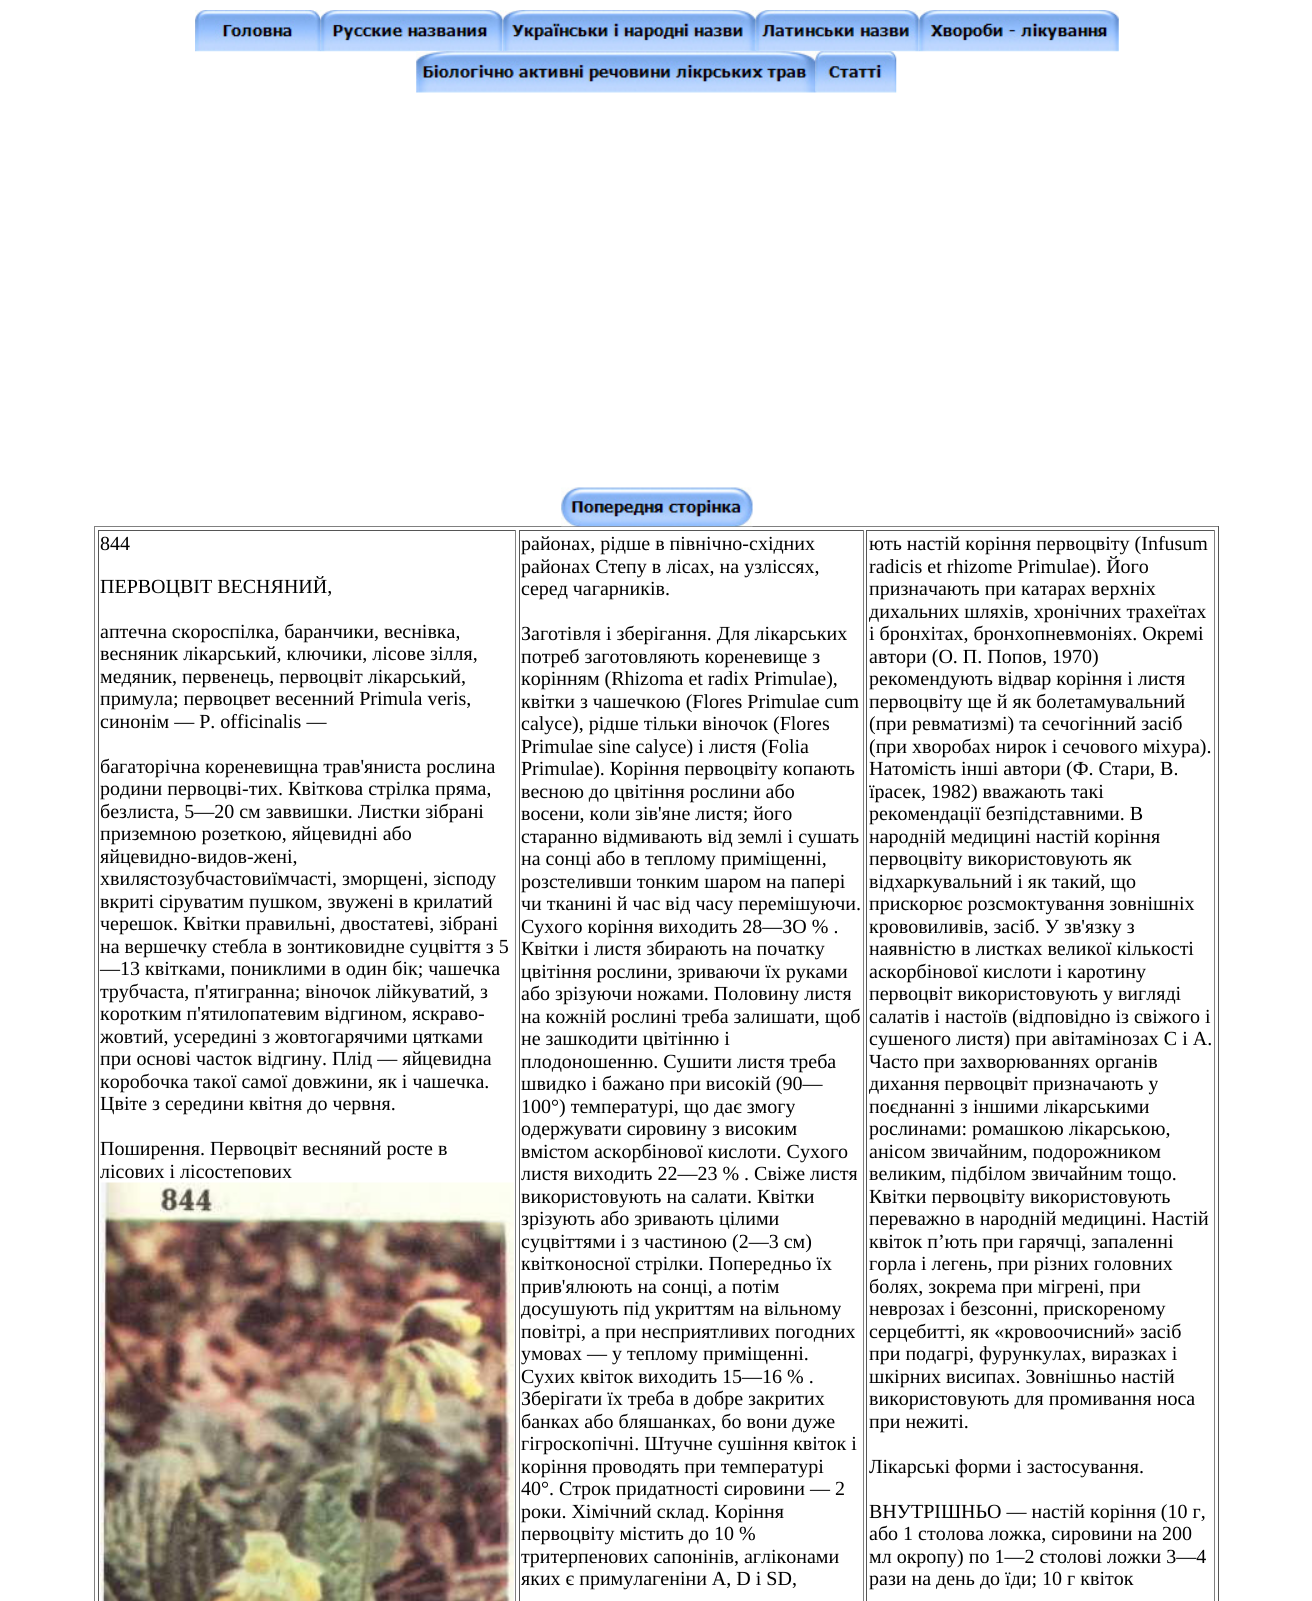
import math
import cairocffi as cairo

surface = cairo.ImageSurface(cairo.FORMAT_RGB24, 1312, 1601)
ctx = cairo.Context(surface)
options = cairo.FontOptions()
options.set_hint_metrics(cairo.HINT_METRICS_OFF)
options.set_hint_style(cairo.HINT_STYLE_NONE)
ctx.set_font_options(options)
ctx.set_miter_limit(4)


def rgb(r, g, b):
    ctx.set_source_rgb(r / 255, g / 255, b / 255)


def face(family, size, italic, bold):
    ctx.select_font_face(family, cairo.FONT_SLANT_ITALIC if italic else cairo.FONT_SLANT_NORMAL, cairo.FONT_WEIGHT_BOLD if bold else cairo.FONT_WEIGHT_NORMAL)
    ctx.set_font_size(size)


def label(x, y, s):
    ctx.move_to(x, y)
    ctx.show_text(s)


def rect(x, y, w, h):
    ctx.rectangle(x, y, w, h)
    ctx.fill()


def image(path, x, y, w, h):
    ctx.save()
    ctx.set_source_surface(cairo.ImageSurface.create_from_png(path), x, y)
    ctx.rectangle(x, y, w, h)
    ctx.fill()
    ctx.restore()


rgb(255, 255, 255)
ctx.paint()
image('image0.png', 195, 10, 125, 42)
image('image1.png', 320, 10, 183, 42)
image('image2.png', 502, 10, 253, 42)
image('image3.png', 755, 10, 164, 42)
image('image4.png', 918, 10, 201, 42)
image('image5.png', 416, 51, 399, 42)
image('image6.png', 815, 51, 82, 42)
rgb(128, 128, 128)
rect(94, 526, 1125, 1)
image('image7.png', 561, 487, 192, 40)
rgb(85, 85, 85)
rect(1218, 526, 1, 1075)
rgb(128, 128, 128)
rect(94, 526, 1, 1075)
rgb(85, 85, 85)
rect(98, 530, 418, 1)
rgb(128, 128, 128)
rect(515, 530, 1, 1071)
rgb(85, 85, 85)
rect(98, 530, 1, 1071)
face('Liberation Serif', 20, 0, 0)
rgb(0, 0, 0)
label(100, 550, '844')
label(100, 593, 'ПЕРВОЦВІТ ВЕСНЯНИЙ,')
label(100, 638, 'аптечна скороспілка, баранчики, веснівка,')
label(100, 660, 'весняник лікарський, ключики, лісове зілля,')
label(100, 683, 'медяник, первенець, первоцвіт лікарський,')
label(100, 705, 'примула; первоцвет весенний Primula veris,')
label(100, 728, 'синонім — P. officinalis —')
label(100, 773, 'багаторічна кореневищна трав\'яниста рослина')
label(100, 795, 'родини первоцві-тих. Квіткова стрілка пряма,')
label(100, 818, 'безлиста, 5—20 см заввишки. Листки зібрані')
label(100, 840, 'приземною розеткою, яйцевидні або')
label(100, 863, 'яйцевидно-видов-жені,')
label(100, 885, 'хвилястозубчастовиїмчасті, зморщені, зісподу')
label(100, 908, 'вкриті сіруватим пушком, звужені в крилатий')
label(100, 930, 'черешок. Квітки правильні, двостатеві, зібрані')
label(100, 953, 'на вершечку стебла в зонтиковидне суцвіття з 5')
label(100, 975, '—13 квітками, пониклими в один бік; чашечка')
label(100, 998, 'трубчаста, п\'ятигранна; віночок лійкуватий, з')
label(100, 1020, 'коротким п\'ятилопатевим відгином, яскраво-')
label(100, 1043, 'жовтий, усередині з жовтогарячими цятками')
label(100, 1065, 'при основі часток відгину. Плід — яйцевидна')
label(100, 1088, 'коробочка такої самої довжини, як і чашечка.')
label(100, 1110, 'Цвіте з середини квітня до червня.')
label(100, 1155, 'Поширення. Первоцвіт весняний росте в')
label(100, 1178, 'лісових і лісостепових')
image('image8.png', 100, 1182, 414, 419)
rgb(85, 85, 85)
rect(519, 530, 345, 1)
rgb(128, 128, 128)
rect(863, 530, 1, 1071)
rgb(85, 85, 85)
rect(519, 530, 1, 1071)
rgb(0, 0, 0)
label(521, 550, 'районах, рідше в північно-східних')
label(521, 573, 'районах Степу в лісах, на узліссях,')
label(521, 595, 'серед чагарників.')
label(521, 640, 'Заготівля і зберігання. Для лікарських')
label(521, 663, 'потреб заготовляють кореневище з')
label(521, 685, 'корінням (Rhizoma et radix Primulae),')
label(521, 708, 'квітки з чашечкою (Flores Primulae cum')
label(521, 730, 'calyce), рідше тільки віночок (Flores')
label(521, 753, 'Primulae sine calyce) і листя (Folia')
label(521, 775, 'Primulae). Коріння первоцвіту копають')
label(521, 798, 'весною до цвітіння рослини або')
label(521, 820, 'восени, коли зів\'яне листя; його')
label(521, 843, 'старанно відмивають від землі і сушать')
label(521, 865, 'на сонці або в теплому приміщенні,')
label(521, 888, 'розстеливши тонким шаром на папері')
label(521, 910, 'чи тканині й час від часу перемішуючи.')
label(521, 933, 'Сухого коріння виходить 28—ЗО % .')
label(521, 955, 'Квітки і листя збирають на початку')
label(521, 978, 'цвітіння рослини, зриваючи їх руками')
label(521, 1000, 'або зрізуючи ножами. Половину листя')
label(521, 1023, 'на кожній рослині треба залишати, щоб')
label(521, 1045, 'не зашкодити цвітінню і')
label(521, 1068, 'плодоношенню. Сушити листя треба')
label(521, 1090, 'швидко і бажано при високій (90—')
label(521, 1113, '100°) температурі, що дає змогу')
label(521, 1135, 'одержувати сировину з високим')
label(521, 1158, 'вмістом аскорбінової кислоти. Сухого')
label(521, 1180, 'листя виходить 22—23 % . Свіже листя')
label(521, 1203, 'використовують на салати. Квітки')
label(521, 1225, 'зрізують або зривають цілими')
label(521, 1248, 'суцвіттями і з частиною (2—3 см)')
label(521, 1270, 'квітконосної стрілки. Попередньо їх')
label(521, 1293, 'прив\'ялюють на сонці, а потім')
label(521, 1315, 'досушують під укриттям на вільному')
label(521, 1338, 'повітрі, а при несприятливих погодних')
label(521, 1360, 'умовах — у теплому приміщенні.')
label(521, 1383, 'Сухих квіток виходить 15—16 % .')
label(521, 1405, 'Зберігати їх треба в добре закритих')
label(521, 1428, 'банках або бляшанках, бо вони дуже')
label(521, 1450, 'гігроскопічні. Штучне сушіння квіток і')
label(521, 1473, 'коріння проводять при температурі')
label(521, 1495, '40°. Строк придатності сировини — 2')
label(521, 1518, 'роки. Хімічний склад. Коріння')
label(521, 1540, 'первоцвіту містить до 10 %')
label(521, 1563, 'тритерпенових сапонінів, агліконами')
label(521, 1585, 'яких є примулагеніни A, D і SD,')
rgb(85, 85, 85)
rect(866, 530, 349, 1)
rgb(128, 128, 128)
rect(1214, 530, 1, 1071)
rgb(85, 85, 85)
rect(866, 530, 1, 1071)
rgb(0, 0, 0)
label(869, 550, 'ють настій коріння первоцвіту (Infusum')
label(869, 573, 'radicis et rhizome Primulae). Його')
label(869, 595, 'призначають при катарах верхніх')
label(869, 618, 'дихальних шляхів, хронічних трахеїтах')
label(869, 640, 'і бронхітах, бронхопневмоніях. Окремі')
label(869, 663, 'автори (О. П. Попов, 1970)')
label(869, 685, 'рекомендують відвар коріння і листя')
label(869, 708, 'первоцвіту ще й як болетамувальний')
label(869, 730, '(при ревматизмі) та сечогінний засіб')
label(869, 753, '(при хворобах нирок і сечового міхура).')
label(869, 775, 'Натомість інші автори (Ф. Стари, В.')
label(869, 798, 'їрасек, 1982) вважають такі')
label(869, 820, 'рекомендації безпідставними. В')
label(869, 843, 'народній медицині настій коріння')
label(869, 865, 'первоцвіту використовують як')
label(869, 888, 'відхаркувальний і як такий, що')
label(869, 910, 'прискорює розсмоктування зовнішніх')
label(869, 933, 'крововиливів, засіб. У зв\'язку з')
label(869, 955, 'наявністю в листках великої кількості')
label(869, 978, 'аскорбінової кислоти і каротину')
label(869, 1000, 'первоцвіт використовують у вигляді')
label(869, 1023, 'салатів і настоїв (відповідно із свіжого і')
label(869, 1045, 'сушеного листя) при авітамінозах С і А.')
label(869, 1068, 'Часто при захворюваннях органів')
label(869, 1090, 'дихання первоцвіт призначають у')
label(869, 1113, 'поєднанні з іншими лікарськими')
label(869, 1135, 'рослинами: ромашкою лікарською,')
label(869, 1158, 'анісом звичайним, подорожником')
label(869, 1180, 'великим, підбілом звичайним тощо.')
label(869, 1203, 'Квітки первоцвіту використовують')
label(869, 1225, 'переважно в народній медицині. Настій')
label(869, 1248, 'квіток п’ють при гарячці, запаленні')
label(869, 1270, 'горла і легень, при різних головних')
label(869, 1293, 'болях, зокрема при мігрені, при')
label(869, 1315, 'неврозах і безсонні, прискореному')
label(869, 1338, 'серцебитті, як «кровоочисний» засіб')
label(869, 1360, 'при подагрі, фурункулах, виразках і')
label(869, 1383, 'шкірних висипах. Зовнішньо настій')
label(869, 1405, 'використовують для промивання носа')
label(869, 1428, 'при нежиті.')
label(869, 1473, 'Лікарські форми і застосування.')
label(869, 1518, 'ВНУТРІШНЬО — настій коріння (10 г,')
label(869, 1540, 'або 1 столова ложка, сировини на 200')
label(869, 1563, 'мл окропу) по 1—2 столові ложки 3—4')
label(869, 1585, 'рази на день до їди; 10 г квіток')
surface.write_to_png('render.png')
